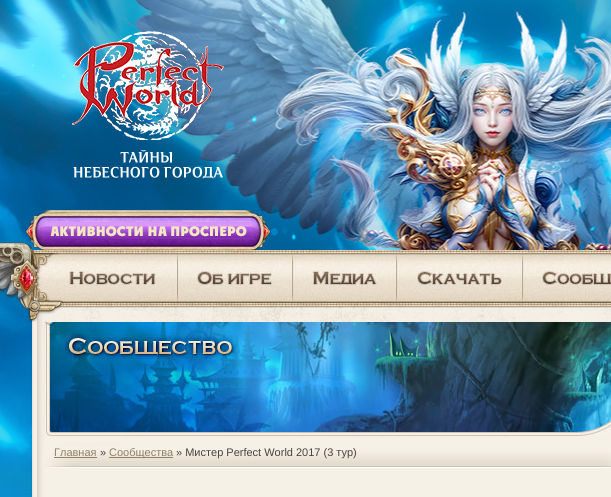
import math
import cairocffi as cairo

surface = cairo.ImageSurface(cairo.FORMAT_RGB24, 611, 497)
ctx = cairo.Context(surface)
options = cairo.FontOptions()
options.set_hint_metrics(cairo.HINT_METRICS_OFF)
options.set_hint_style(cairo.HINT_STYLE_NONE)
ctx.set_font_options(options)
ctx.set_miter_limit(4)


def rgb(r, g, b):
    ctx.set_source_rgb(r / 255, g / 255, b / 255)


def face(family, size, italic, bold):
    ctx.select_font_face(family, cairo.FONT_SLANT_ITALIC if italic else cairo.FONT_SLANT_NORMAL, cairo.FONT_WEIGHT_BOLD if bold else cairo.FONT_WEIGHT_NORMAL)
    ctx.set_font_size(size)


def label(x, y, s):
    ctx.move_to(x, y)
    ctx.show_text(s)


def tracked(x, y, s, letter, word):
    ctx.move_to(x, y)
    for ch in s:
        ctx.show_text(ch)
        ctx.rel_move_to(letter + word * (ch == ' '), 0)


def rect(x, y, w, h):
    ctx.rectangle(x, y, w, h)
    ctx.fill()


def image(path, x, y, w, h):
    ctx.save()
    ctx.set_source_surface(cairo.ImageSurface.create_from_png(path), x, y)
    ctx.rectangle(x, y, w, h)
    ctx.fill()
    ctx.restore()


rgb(255, 255, 255)
ctx.paint()
image('image0.png', 0, 0, 611, 497)
image('image1.png', 72, 31, 152, 148)
image('image3.png', 32, 250, 579, 53)
image('image5.png', 31, 319, 580, 178)
image('image6.png', 25, 298, 586, 24)
image('image4.png', 0, 242, 32, 76)
image('image2.png', 25, 210, 246, 40)
face('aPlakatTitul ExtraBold', 13.4, 0, 0)
rgb(242, 232, 196)
tracked(50, 236, 'АКТИВНОСТИ НА ПРОСПЕРО', 0.1, 0)
image('image7.png', 44, 322, 567, 114)
image('image8.png', 44, 438, 567, 30)
face('Liberation Sans', 11, 0, 0)
rgb(145, 130, 105)
label(54, 456, 'Главная')
rect(54, 457, 43, 1)
rgb(70, 68, 65)
label(100, 456, '»')
rgb(145, 130, 105)
rect(109, 457, 64, 1)
label(109, 456, 'Сообщества')
rgb(70, 68, 65)
label(176, 456, '» Мистер Perfect World 2017 (3 тур)')
surface.write_to_png('render.png')
